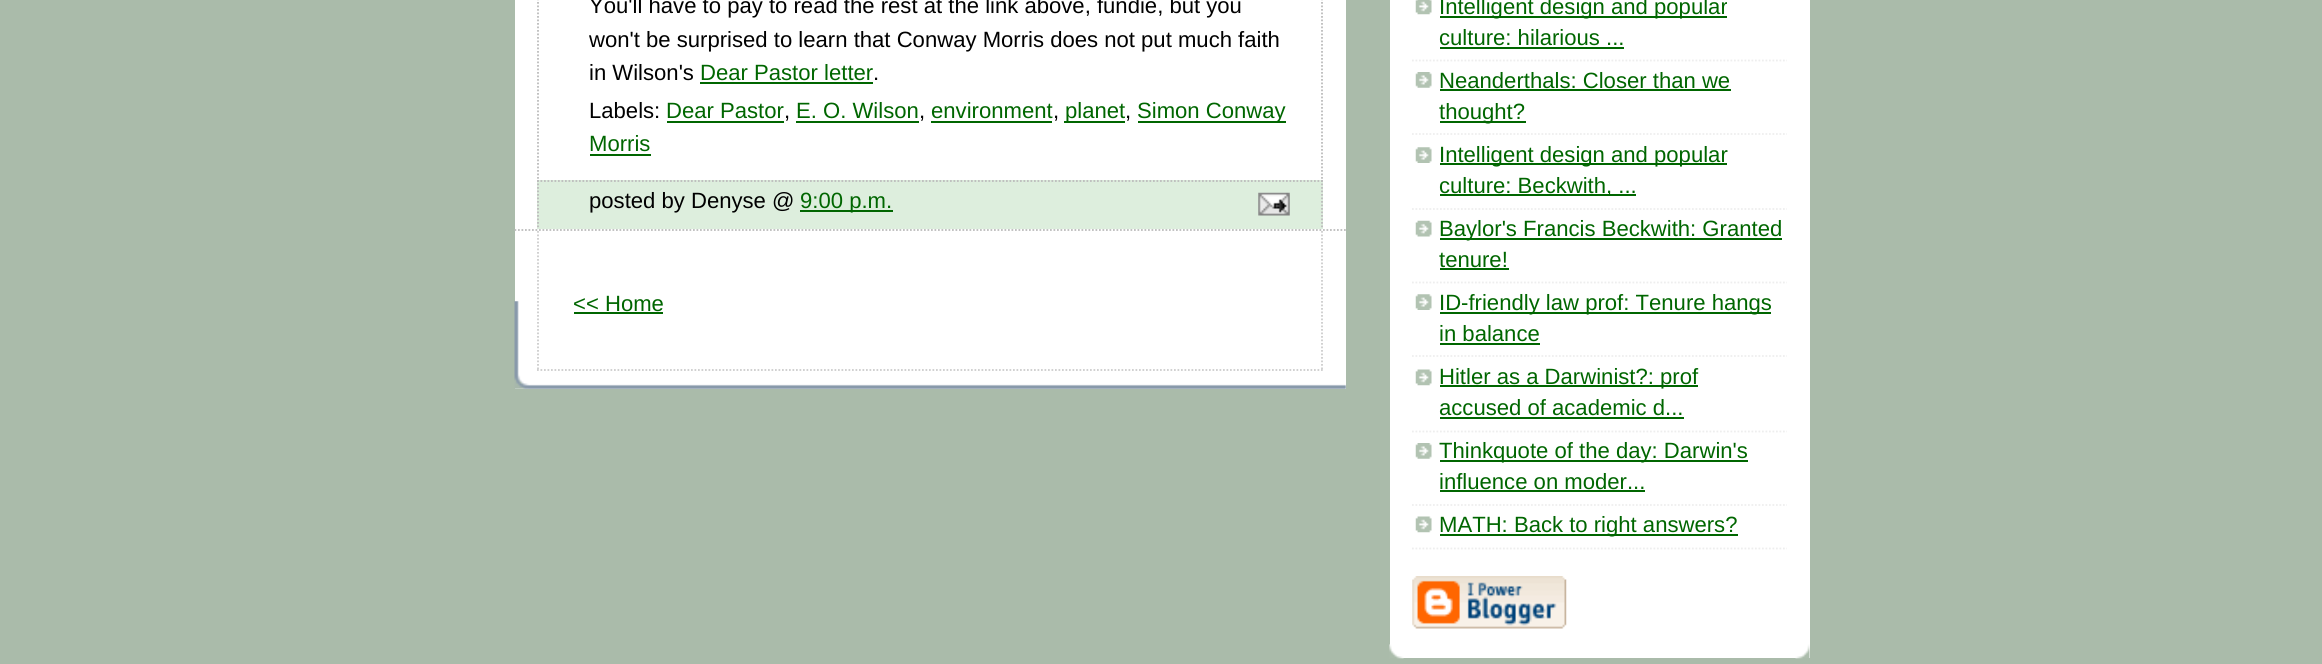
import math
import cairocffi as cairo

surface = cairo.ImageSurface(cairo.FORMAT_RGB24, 2322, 664)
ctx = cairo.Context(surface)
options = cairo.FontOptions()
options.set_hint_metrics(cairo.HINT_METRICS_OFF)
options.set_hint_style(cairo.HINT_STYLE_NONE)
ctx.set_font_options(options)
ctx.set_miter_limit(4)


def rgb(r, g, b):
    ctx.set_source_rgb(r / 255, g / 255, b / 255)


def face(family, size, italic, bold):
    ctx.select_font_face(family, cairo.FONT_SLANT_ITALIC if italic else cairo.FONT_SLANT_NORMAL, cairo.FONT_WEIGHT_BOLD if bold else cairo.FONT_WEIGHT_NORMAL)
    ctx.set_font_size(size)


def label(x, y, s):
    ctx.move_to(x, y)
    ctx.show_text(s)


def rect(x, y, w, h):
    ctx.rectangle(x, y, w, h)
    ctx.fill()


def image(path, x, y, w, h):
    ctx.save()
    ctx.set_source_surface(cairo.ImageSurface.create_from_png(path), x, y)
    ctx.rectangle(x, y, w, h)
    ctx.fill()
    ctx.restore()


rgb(170, 187, 170)
ctx.paint()
rgb(255, 255, 255)
rect(515, 0, 831, 389)
image('image0.png', 514, 301, 832, 88)
ctx.new_path()
ctx.move_to(514.5, 230)
ctx.line_to(1346, 230)
rgb(187, 187, 187)
ctx.set_line_width(1.8)
ctx.set_dash([1.75, 1.75])
ctx.stroke()
ctx.new_path()
ctx.move_to(1322, -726)
ctx.line_to(1322, 180)
ctx.stroke()
ctx.new_path()
ctx.move_to(538, -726)
ctx.line_to(538, 180)
ctx.stroke()
face('Liberation Sans', 22.1, 0, 0)
rgb(0, 0, 0)
label(589, 13, 'You\'ll have to pay to read the rest at the link above, fundie, but you')
label(589, 47, 'won\'t be surprised to learn that Conway Morris does not put much faith')
label(589, 80, 'in Wilson\'s')
rgb(0, 102, 0)
label(700, 80, 'Dear Pastor letter')
rect(700, 82, 173, 2)
rgb(0, 0, 0)
label(873, 80, '.')
label(589, 118, 'Labels:')
rgb(0, 102, 0)
label(666, 118, 'Dear Pastor')
rect(667, 121, 117, 2)
rgb(0, 0, 0)
label(784, 118, ',')
rgb(0, 102, 0)
label(796, 118, 'E. O. Wilson')
rect(796, 121, 123, 2)
rgb(0, 0, 0)
label(919, 118, ',')
rgb(0, 102, 0)
label(931, 118, 'environment')
rect(931, 121, 121, 2)
rgb(0, 0, 0)
label(1053, 118, ',')
rgb(0, 102, 0)
rect(1064, 121, 61, 2)
label(1065, 118, 'planet')
rgb(0, 0, 0)
label(1125, 118, ',')
rgb(0, 102, 0)
rect(1138, 121, 148, 2)
label(1137, 118, 'Simon Conway')
label(589, 151, 'Morris')
rect(590, 154, 61, 2)
rgb(221, 238, 221)
rect(537, 180, 786, 49)
ctx.new_path()
ctx.move_to(537, 181)
ctx.line_to(1323, 181)
rgb(187, 187, 187)
ctx.stroke()
ctx.new_path()
ctx.move_to(1322, 180)
ctx.line_to(1322, 229)
ctx.stroke()
ctx.new_path()
ctx.move_to(538, 180)
ctx.line_to(538, 229)
ctx.stroke()
rgb(0, 0, 0)
label(589, 208, 'posted by Denyse @')
rgb(0, 102, 0)
rect(800, 210, 93, 2)
label(800, 208, '9:00 p.m.')
image('image1.png', 1258, 192, 32, 24)
ctx.new_path()
ctx.move_to(1322, 231)
ctx.line_to(1322, 371)
rgb(204, 204, 204)
ctx.stroke()
ctx.new_path()
ctx.move_to(537, 370)
ctx.line_to(1323, 370)
ctx.stroke()
ctx.new_path()
ctx.move_to(538, 231)
ctx.line_to(538, 371)
ctx.stroke()
rgb(0, 102, 0)
label(573, 311, '<< Home')
rect(574, 312, 89, 2)
rgb(255, 255, 255)
rect(1390, 0, 420, 658)
image('image2.png', 1389, 644, 421, 15)
image('image3.png', 1415, 0, 17, 15)
ctx.new_path()
ctx.move_to(1412, 60.5)
ctx.line_to(1787, 60.5)
rgb(238, 238, 238)
ctx.stroke()
rgb(0, 102, 0)
rect(1440, 16, 287, 2)
label(1439, 14, 'Intelligent design and popular')
label(1439, 45, 'culture: hilarious ...')
rect(1440, 47, 184, 2)
image('image4.png', 1415, 72, 17, 16)
ctx.new_path()
ctx.move_to(1412, 134)
ctx.line_to(1787, 134)
rgb(238, 238, 238)
ctx.stroke()
rgb(0, 102, 0)
label(1439, 88, 'Neanderthals: Closer than we')
rect(1440, 89, 291, 2)
rect(1440, 121, 86, 2)
label(1439, 119, 'thought?')
image('image5.png', 1415, 147, 17, 16)
ctx.new_path()
ctx.move_to(1412, 209)
ctx.line_to(1787, 209)
rgb(238, 238, 238)
ctx.stroke()
rgb(0, 102, 0)
rect(1440, 163, 287, 2)
label(1439, 162, 'Intelligent design and popular')
rect(1440, 194, 196, 2)
label(1439, 193, 'culture: Beckwith, ...')
image('image6.png', 1415, 220, 17, 17)
ctx.new_path()
ctx.move_to(1412, 282.5)
ctx.line_to(1787, 282.5)
rgb(238, 238, 238)
ctx.stroke()
rgb(0, 102, 0)
rect(1440, 238, 342, 2)
label(1439, 236, 'Baylor\'s Francis Beckwith: Granted')
label(1439, 267, 'tenure!')
rect(1440, 268, 69, 2)
image('image5.png', 1415, 294, 17, 16)
ctx.new_path()
ctx.move_to(1412, 356)
ctx.line_to(1787, 356)
rgb(238, 238, 238)
ctx.stroke()
rgb(0, 102, 0)
rect(1440, 312, 331, 2)
label(1439, 310, 'ID-friendly law prof: Tenure hangs')
label(1439, 341, 'in balance')
rect(1440, 343, 100, 2)
image('image7.png', 1415, 369, 17, 17)
ctx.new_path()
ctx.move_to(1412, 431.5)
ctx.line_to(1787, 431.5)
rgb(238, 238, 238)
ctx.stroke()
rgb(0, 102, 0)
rect(1440, 385, 258, 2)
label(1439, 384, 'Hitler as a Darwinist?: prof')
label(1439, 415, 'accused of academic d...')
rect(1440, 417, 244, 2)
image('image4.png', 1415, 443, 17, 16)
ctx.new_path()
ctx.move_to(1412, 505)
ctx.line_to(1787, 505)
rgb(238, 238, 238)
ctx.stroke()
rgb(0, 102, 0)
rect(1440, 460, 308, 2)
label(1439, 458, 'Thinkquote of the day: Darwin\'s')
label(1439, 489, 'influence on moder...')
rect(1440, 490, 205, 2)
image('image7.png', 1415, 516, 17, 17)
ctx.new_path()
ctx.move_to(1412, 548.5)
ctx.line_to(1787, 548.5)
rgb(238, 238, 238)
ctx.stroke()
rgb(0, 102, 0)
rect(1440, 534, 298, 2)
label(1439, 532, 'MATH: Back to right answers?')
image('image8.png', 1412, 576, 155, 53)
surface.write_to_png('render.png')
